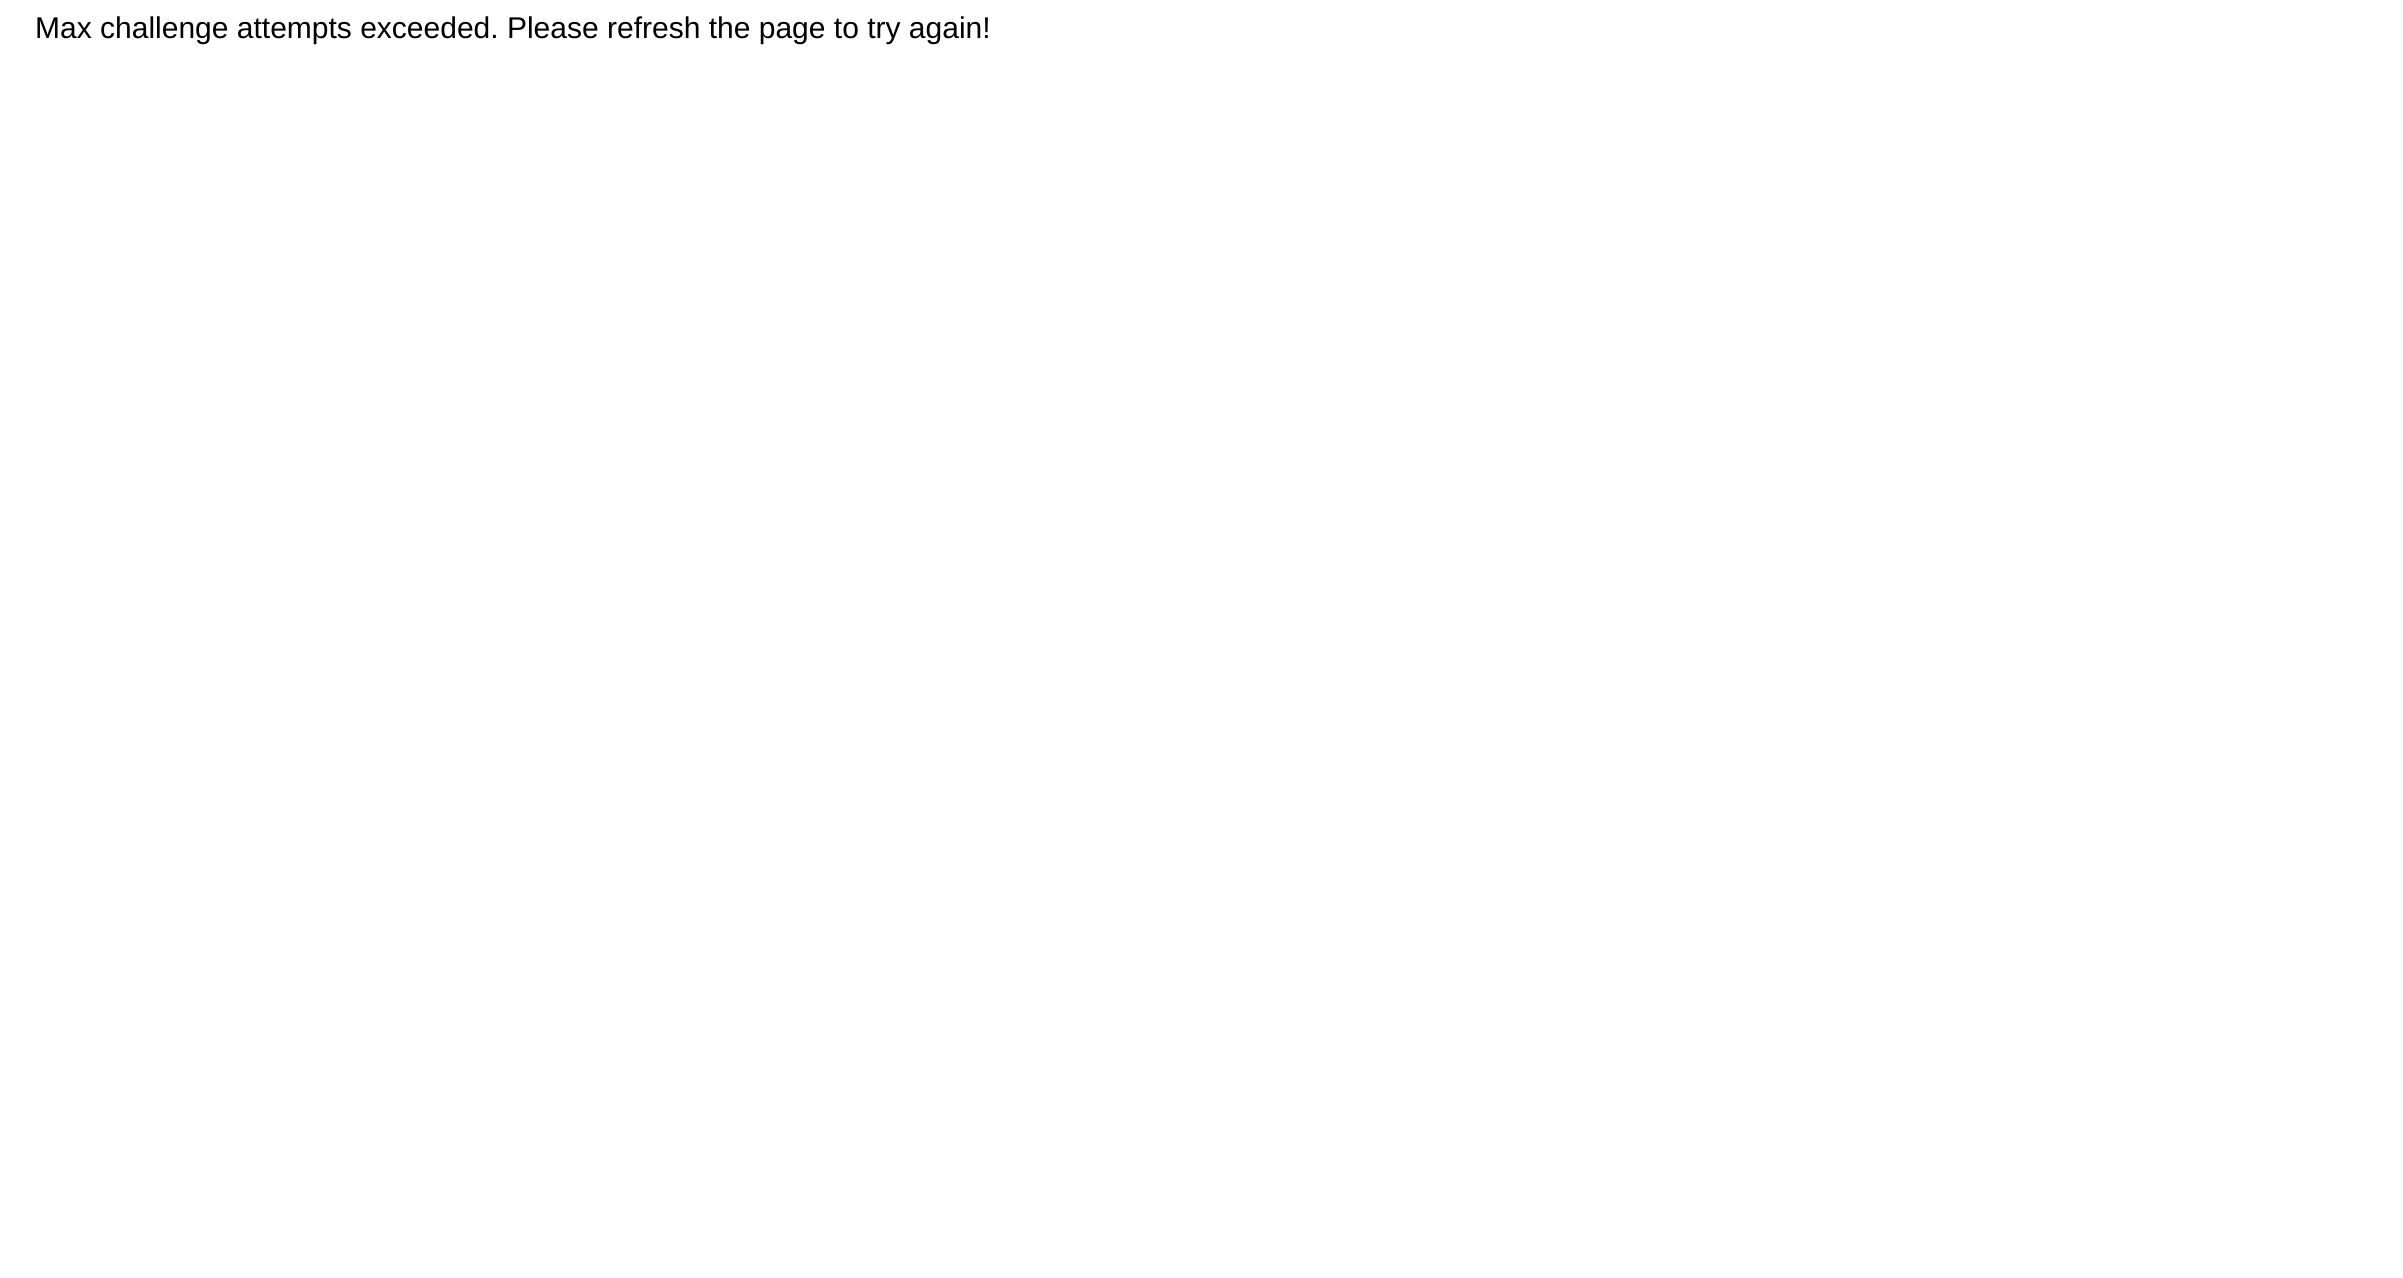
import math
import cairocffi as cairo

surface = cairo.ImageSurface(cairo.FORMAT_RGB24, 2403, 1278)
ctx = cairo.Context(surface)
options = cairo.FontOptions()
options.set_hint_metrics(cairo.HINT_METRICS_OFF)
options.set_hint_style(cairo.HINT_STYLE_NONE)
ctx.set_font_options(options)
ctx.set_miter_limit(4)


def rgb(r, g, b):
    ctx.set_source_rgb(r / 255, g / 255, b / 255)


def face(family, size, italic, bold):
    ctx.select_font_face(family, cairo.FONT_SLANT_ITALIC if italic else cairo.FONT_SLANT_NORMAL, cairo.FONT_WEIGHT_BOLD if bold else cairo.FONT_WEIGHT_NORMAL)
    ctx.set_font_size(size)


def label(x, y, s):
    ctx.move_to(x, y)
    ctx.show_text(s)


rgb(255, 255, 255)
ctx.paint()
face('Liberation Sans', 30, 0, 0)
rgb(0, 0, 0)
label(35, 38, 'Max challenge attempts exceeded. Please refresh the page to try again!')
surface.write_to_png('render.png')
